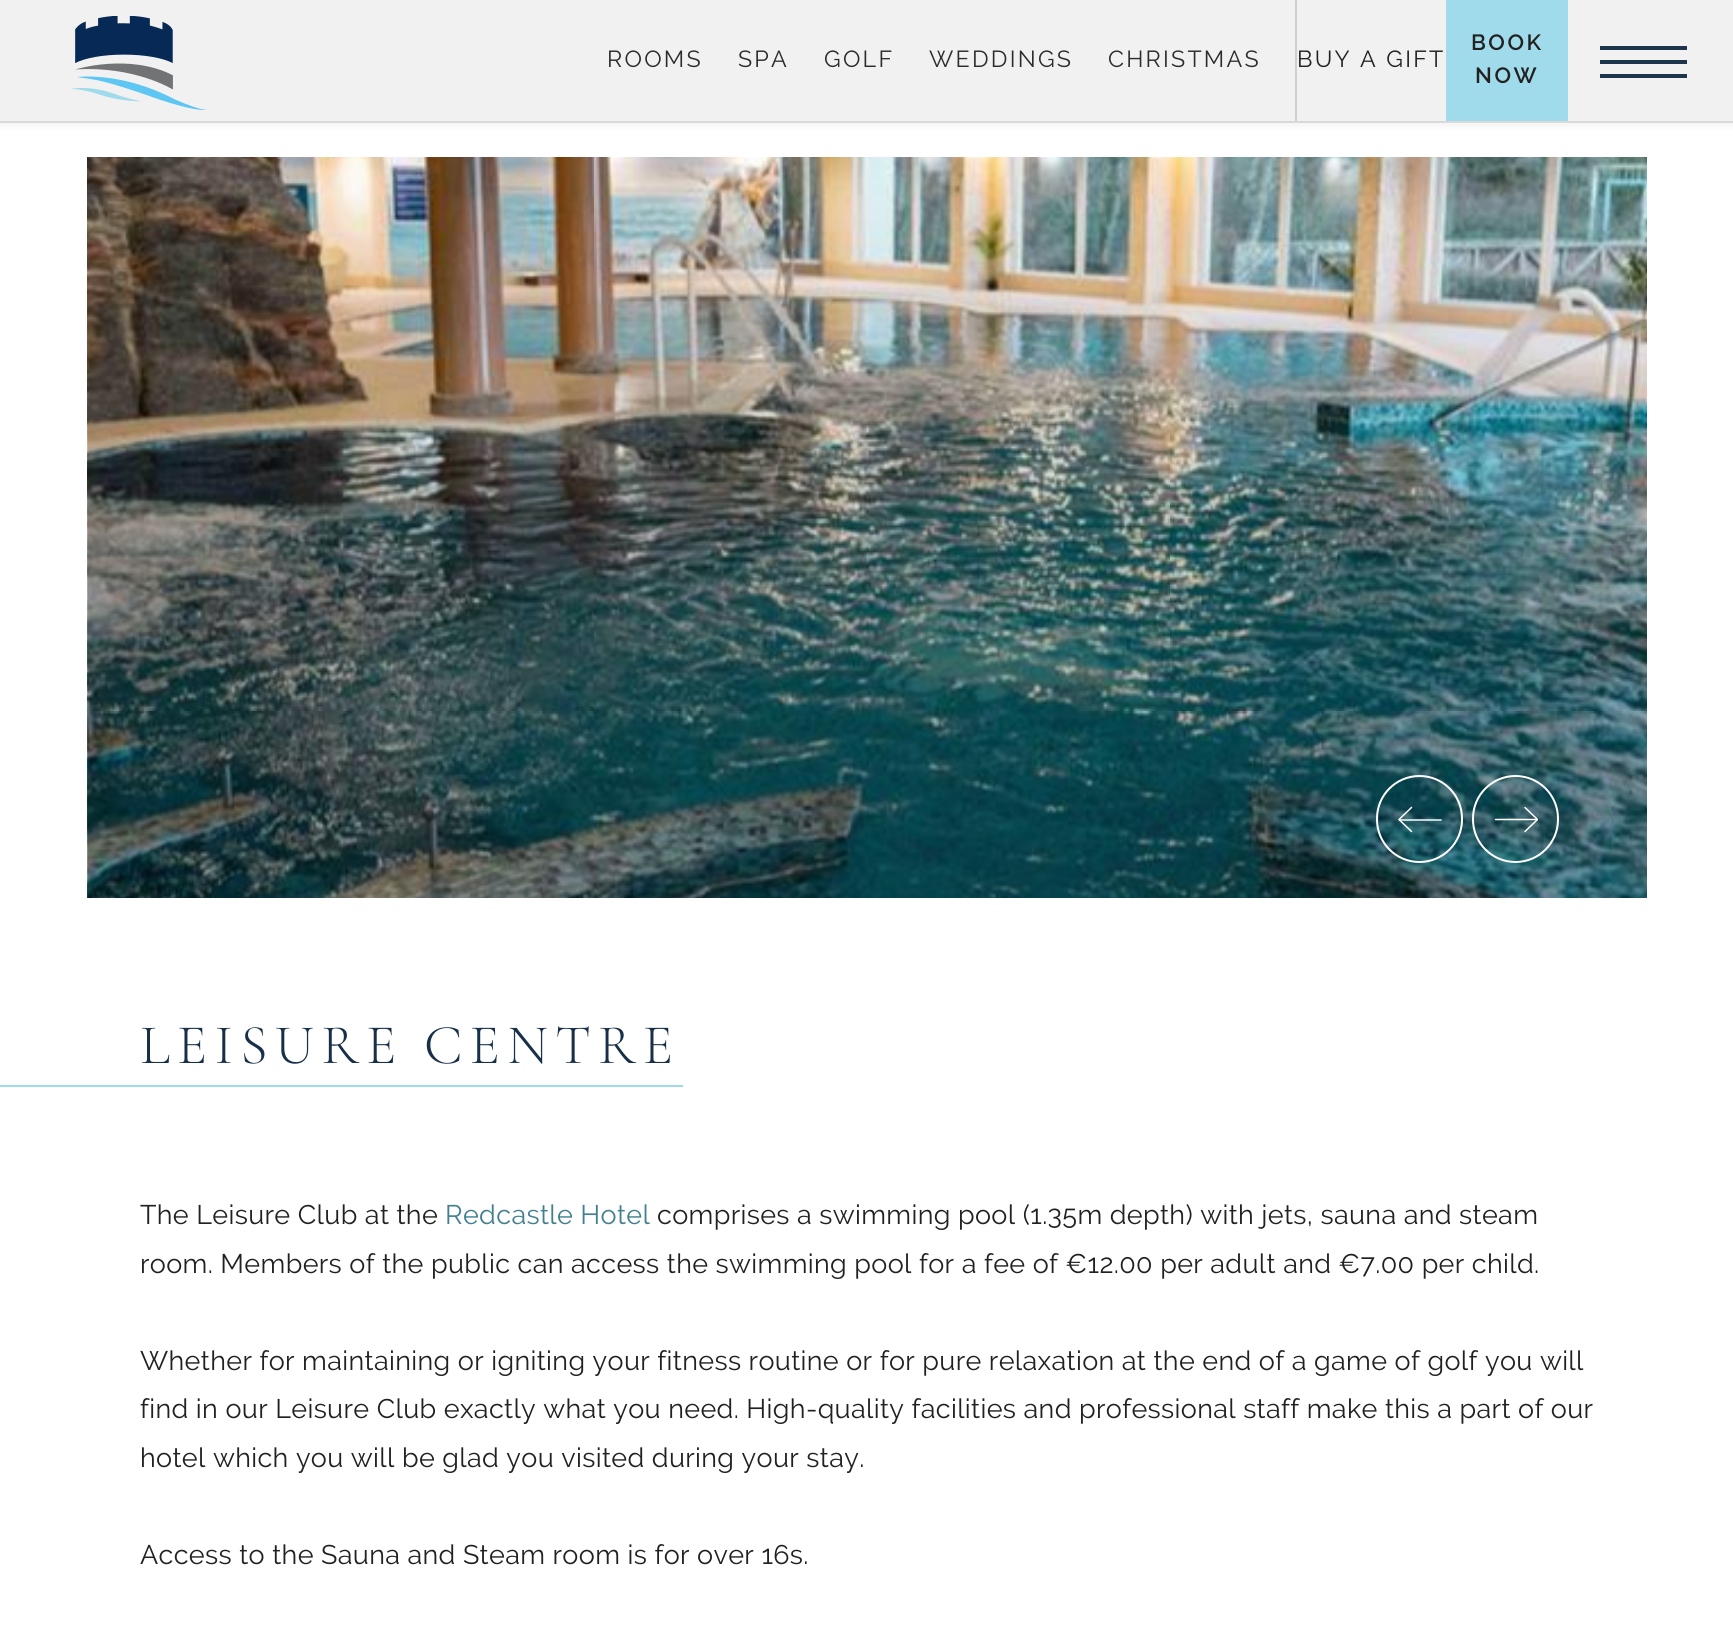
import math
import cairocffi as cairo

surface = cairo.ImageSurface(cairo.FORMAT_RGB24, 1733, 1646)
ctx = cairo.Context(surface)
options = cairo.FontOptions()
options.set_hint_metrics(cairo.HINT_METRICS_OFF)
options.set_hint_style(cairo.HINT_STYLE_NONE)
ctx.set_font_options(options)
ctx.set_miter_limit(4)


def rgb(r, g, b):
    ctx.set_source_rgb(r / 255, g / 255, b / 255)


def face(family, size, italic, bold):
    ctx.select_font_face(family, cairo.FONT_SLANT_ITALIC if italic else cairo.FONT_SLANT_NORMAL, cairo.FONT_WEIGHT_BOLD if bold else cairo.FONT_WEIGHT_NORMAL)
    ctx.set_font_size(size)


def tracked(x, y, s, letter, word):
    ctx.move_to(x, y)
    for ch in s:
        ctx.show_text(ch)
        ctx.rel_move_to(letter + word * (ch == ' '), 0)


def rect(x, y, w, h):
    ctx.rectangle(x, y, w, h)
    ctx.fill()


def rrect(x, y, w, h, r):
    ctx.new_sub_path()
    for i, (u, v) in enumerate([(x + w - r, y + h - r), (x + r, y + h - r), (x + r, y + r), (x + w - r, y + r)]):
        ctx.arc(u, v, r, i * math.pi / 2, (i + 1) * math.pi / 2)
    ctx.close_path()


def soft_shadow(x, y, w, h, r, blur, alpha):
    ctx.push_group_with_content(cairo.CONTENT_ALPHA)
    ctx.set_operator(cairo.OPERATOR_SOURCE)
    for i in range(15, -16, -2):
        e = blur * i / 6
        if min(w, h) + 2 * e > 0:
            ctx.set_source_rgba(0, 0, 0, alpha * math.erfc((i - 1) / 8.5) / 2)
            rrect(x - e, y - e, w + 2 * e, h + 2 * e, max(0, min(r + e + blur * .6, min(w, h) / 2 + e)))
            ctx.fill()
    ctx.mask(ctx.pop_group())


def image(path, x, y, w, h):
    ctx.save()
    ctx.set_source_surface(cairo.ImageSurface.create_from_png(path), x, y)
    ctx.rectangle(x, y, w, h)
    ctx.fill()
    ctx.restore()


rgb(255, 255, 255)
ctx.paint()
rgb(0, 0, 0)
soft_shadow(0, 4, 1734, 122, 0, 3.5, 0.05)
rgb(241, 241, 241)
rect(0, 0, 1733, 121)
rgb(217, 217, 217)
rect(0, 121, 1733, 2)
image('image0.png', 71, 16, 138, 94)
rgb(207, 207, 207)
rect(1295, 0, 2, 121)
face('Raleway', 23.25, 0, 0)
rgb(45, 43, 43)
tracked(607, 67, 'ROOMS', 2.25, 0)
tracked(738, 67, 'SPA', 2.25, 0)
tracked(824, 67, 'GOLF', 2.25, 0)
tracked(929, 67, 'WEDDINGS', 2.25, 0)
tracked(1108, 67, 'CHRISTMAS', 2.25, 0)
rgb(35, 32, 32)
tracked(1297, 67, 'BUY A GIFT', 2.25, 0)
rgb(159, 219, 234)
rect(1446, 0, 122, 121)
face('Raleway SemiBold', 22, 0, 0)
rgb(35, 32, 32)
tracked(1471, 50, 'BOOK', 2.5, 0)
tracked(1475, 83, 'NOW', 2.5, 0)
rgb(29, 52, 77)
rect(1600, 46, 87, 4)
rect(1600, 60, 87, 4)
rect(1600, 74, 87, 4)
image('image1.png', 87, 157, 1560, 741)
ctx.new_path()
ctx.move_to(1411.5, 807.5)
ctx.line_to(1399, 819.5)
ctx.line_to(1411.5, 831.5)
rgb(255, 255, 255)
ctx.set_line_width(1.5)
ctx.set_line_cap(cairo.LINE_CAP_ROUND)
ctx.set_line_join(cairo.LINE_JOIN_ROUND)
ctx.stroke()
ctx.new_path()
ctx.move_to(1441, 820)
ctx.line_to(1399.5, 820)
ctx.set_line_join(cairo.LINE_JOIN_MITER)
ctx.stroke()
rrect(1377, 776, 85, 86, 42.5)
ctx.set_line_width(2)
ctx.set_line_cap(cairo.LINE_CAP_BUTT)
ctx.stroke()
ctx.save()
ctx.rectangle(1495, 807, 43, 26)
ctx.clip()
ctx.new_path()
ctx.move_to(1525, 831.5)
ctx.line_to(1537.5, 819.5)
ctx.line_to(1525, 807.5)
ctx.set_line_width(1.5)
ctx.set_line_cap(cairo.LINE_CAP_ROUND)
ctx.set_line_join(cairo.LINE_JOIN_ROUND)
ctx.stroke()
ctx.restore()
ctx.new_path()
ctx.move_to(1495.5, 819.5)
ctx.line_to(1537, 819.5)
ctx.set_line_width(1.5)
ctx.set_line_cap(cairo.LINE_CAP_ROUND)
ctx.stroke()
rrect(1473, 776, 85, 86, 42.5)
ctx.set_line_width(2)
ctx.set_line_cap(cairo.LINE_CAP_BUTT)
ctx.stroke()
face('Cormorant Garamond Light', 56.25, 0, 0)
rgb(23, 47, 73)
tracked(140, 1063, 'LEISURE CENTRE', 7.3, 0)
rgb(157, 218, 234)
rect(0, 1085, 683, 2)
face('Raleway', 26.95, 0, 0)
rgb(35, 32, 32)
tracked(140, 1224, 'The Leisure Club at the', 0.35, 0)
rgb(66, 127, 143)
tracked(445, 1224, 'Redcastle Hotel', 0.35, 0)
rgb(35, 32, 32)
tracked(657, 1224, 'comprises a swimming pool (1.35m depth) with jets, sauna and steam', 0.35, 0)
tracked(140, 1273, 'room. Members of the public can access the swimming pool for a fee of €12.00 per adult and €7.00 per child.', 0.35, 0)
tracked(140, 1370, 'Whether for maintaining or igniting your fitness routine or for pure relaxation at the end of a game of golf you will', 0.35, 0)
tracked(140, 1418, 'find in our Leisure Club exactly what you need. High-quality facilities and professional staff make this a part of our', 0.35, 0)
tracked(140, 1467, 'hotel which you will be glad you visited during your stay.', 0.35, 0)
tracked(140, 1564, 'Access to the Sauna and Steam room is for over 16s.', 0.35, 0)
surface.write_to_png('render.png')
